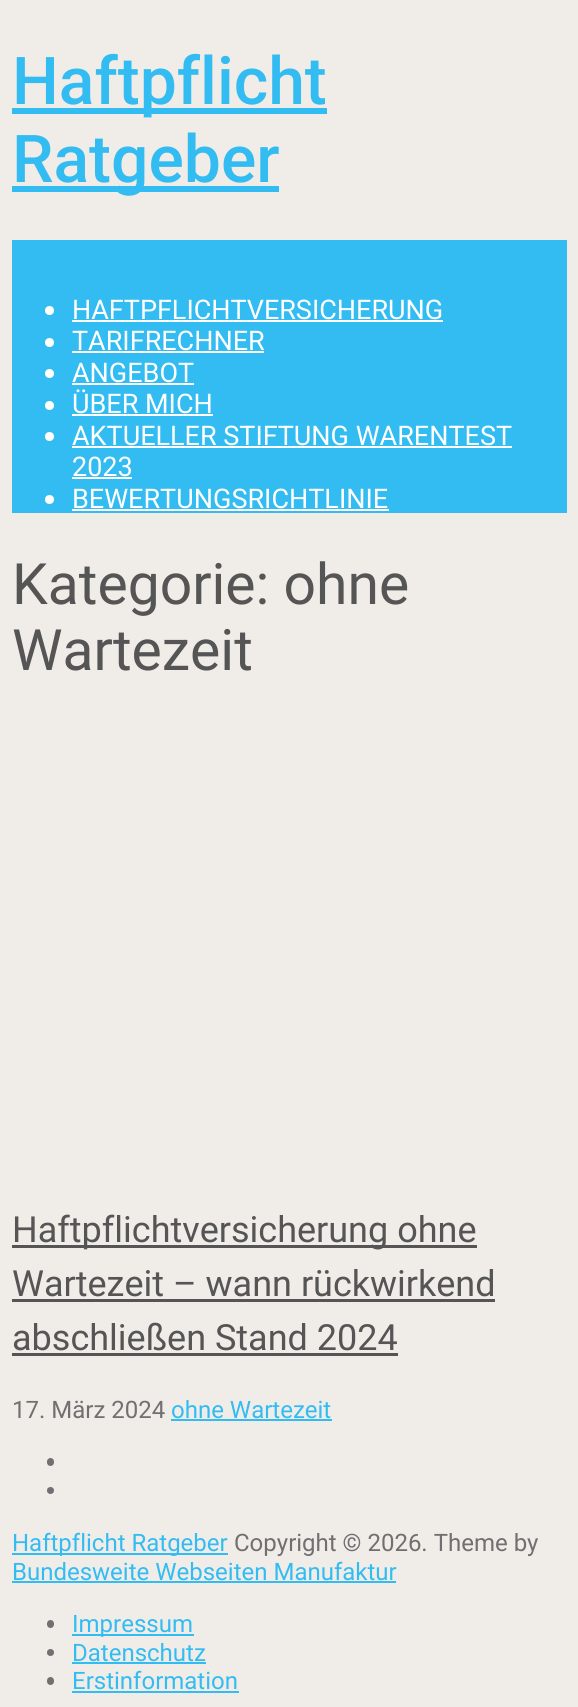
import math
import cairocffi as cairo

surface = cairo.ImageSurface(cairo.FORMAT_RGB24, 578, 1707)
ctx = cairo.Context(surface)
options = cairo.FontOptions()
options.set_hint_metrics(cairo.HINT_METRICS_OFF)
options.set_hint_style(cairo.HINT_STYLE_NONE)
ctx.set_font_options(options)
ctx.set_miter_limit(4)


def rgb(r, g, b):
    ctx.set_source_rgb(r / 255, g / 255, b / 255)


def face(family, size, italic, bold):
    ctx.select_font_face(family, cairo.FONT_SLANT_ITALIC if italic else cairo.FONT_SLANT_NORMAL, cairo.FONT_WEIGHT_BOLD if bold else cairo.FONT_WEIGHT_NORMAL)
    ctx.set_font_size(size)


def label(x, y, s):
    ctx.move_to(x, y)
    ctx.show_text(s)


def rect(x, y, w, h):
    ctx.rectangle(x, y, w, h)
    ctx.fill()


def rrect(x, y, w, h, r):
    ctx.new_sub_path()
    for i, (u, v) in enumerate([(x + w - r, y + h - r), (x + r, y + h - r), (x + r, y + r), (x + w - r, y + r)]):
        ctx.arc(u, v, r, i * math.pi / 2, (i + 1) * math.pi / 2)
    ctx.close_path()


rgb(240, 237, 233)
ctx.paint()
rgb(51, 188, 242)
rect(12, 108, 315, 6)
face('Roboto Medium', 66, 0, 0)
label(12, 104, 'Haftpflicht')
rect(12, 186, 267, 6)
label(12, 182, 'Ratgeber')
rect(12, 240, 555, 273)
rgb(255, 255, 255)
ctx.new_path()
ctx.arc(49.5, 310.5, 4.5, 0, 2 * math.pi)
ctx.fill()
face('Roboto', 27, 0, 0)
label(72, 319, 'HAFTPFLICHTVERSICHERUNG')
rect(72, 320, 371, 2)
ctx.new_path()
ctx.arc(49.5, 342.5, 4.5, 0, 2 * math.pi)
ctx.fill()
label(72, 350, 'TARIFRECHNER')
rect(72, 351, 192, 2)
ctx.new_path()
ctx.arc(49.5, 373.5, 4.5, 0, 2 * math.pi)
ctx.fill()
label(72, 382, 'ANGEBOT')
rect(72, 383, 122, 2)
ctx.new_path()
ctx.arc(49.5, 405.5, 4.5, 0, 2 * math.pi)
ctx.fill()
label(72, 413, 'ÜBER MICH')
rect(72, 414, 141, 2)
ctx.new_path()
ctx.arc(49.5, 436.5, 4.5, 0, 2 * math.pi)
ctx.fill()
label(72, 445, 'AKTUELLER STIFTUNG WARENTEST')
rect(72, 446, 440, 2)
label(72, 476, '2023')
rect(72, 477, 60, 2)
ctx.new_path()
ctx.arc(49.5, 499.5, 4.5, 0, 2 * math.pi)
ctx.fill()
label(72, 508, 'BEWERTUNGSRICHTLINIE')
rect(72, 509, 317, 2)
face('Roboto', 57, 0, 0)
rgb(85, 85, 85)
label(12, 604, 'Kategorie: ohne')
label(12, 670, 'Wartezeit')
rect(12, 1245, 465, 3)
face('Roboto', 36, 0, 0)
label(12, 1242, 'Haftpflichtversicherung ohne')
label(12, 1296, 'Wartezeit – wann rückwirkend')
rect(12, 1299, 483, 3)
label(12, 1350, 'abschließen Stand 2024')
rect(12, 1353, 386, 3)
face('Roboto', 24, 0, 0)
rgb(112, 112, 112)
label(12, 1418, '17. März 2024')
rgb(51, 188, 242)
label(171, 1418, 'ohne Wartezeit')
rect(171, 1419, 161, 2)
rgb(112, 112, 112)
rrect(47, 1458, 7, 8, 3.5)
ctx.fill()
ctx.arc(50.5, 1490.5, 3.5, 0, 2 * math.pi)
ctx.fill()
rgb(51, 188, 242)
rect(12, 1553, 216, 2)
label(12, 1551, 'Haftpflicht Ratgeber')
rgb(112, 112, 112)
label(234, 1551, 'Copyright © 2026. Theme by')
rgb(51, 188, 242)
label(12, 1580, 'Bundesweite Webseiten Manufaktur')
rect(12, 1581, 384, 2)
rgb(112, 112, 112)
rrect(47, 1620, 7, 8, 3.5)
ctx.fill()
rgb(51, 188, 242)
rect(72, 1634, 122, 2)
label(72, 1632, 'Impressum')
rgb(112, 112, 112)
ctx.new_path()
ctx.arc(50.5, 1652.5, 3.5, 0, 2 * math.pi)
ctx.fill()
rgb(51, 188, 242)
label(72, 1661, 'Datenschutz')
rect(72, 1662, 134, 2)
rgb(112, 112, 112)
rrect(47, 1677, 7, 8, 3.5)
ctx.fill()
rgb(51, 188, 242)
label(72, 1689, 'Erstinformation')
rect(72, 1691, 167, 2)
surface.write_to_png('render.png')
